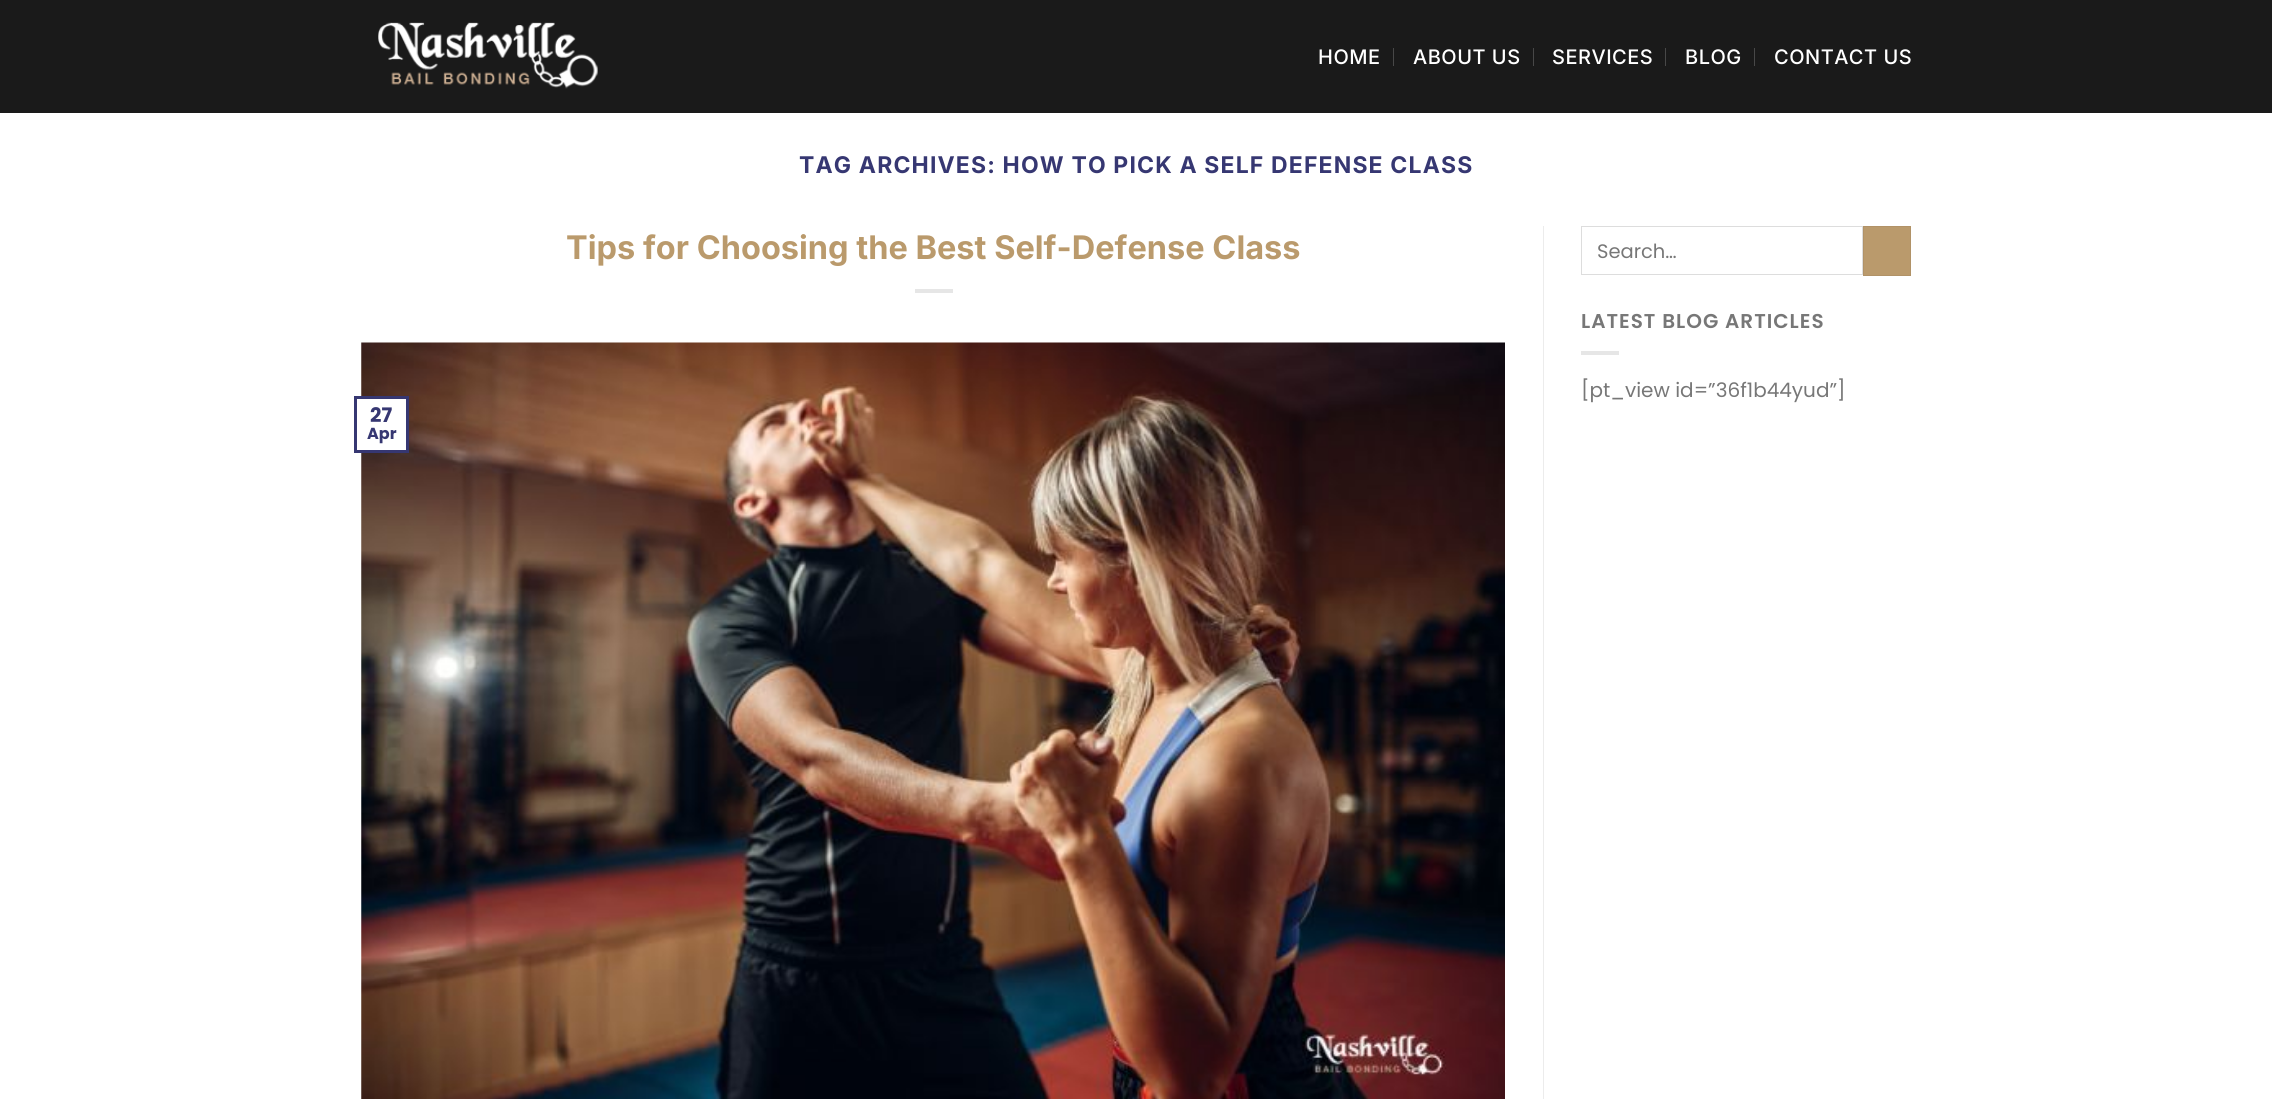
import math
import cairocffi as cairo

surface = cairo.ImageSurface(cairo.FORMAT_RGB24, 2272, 1099)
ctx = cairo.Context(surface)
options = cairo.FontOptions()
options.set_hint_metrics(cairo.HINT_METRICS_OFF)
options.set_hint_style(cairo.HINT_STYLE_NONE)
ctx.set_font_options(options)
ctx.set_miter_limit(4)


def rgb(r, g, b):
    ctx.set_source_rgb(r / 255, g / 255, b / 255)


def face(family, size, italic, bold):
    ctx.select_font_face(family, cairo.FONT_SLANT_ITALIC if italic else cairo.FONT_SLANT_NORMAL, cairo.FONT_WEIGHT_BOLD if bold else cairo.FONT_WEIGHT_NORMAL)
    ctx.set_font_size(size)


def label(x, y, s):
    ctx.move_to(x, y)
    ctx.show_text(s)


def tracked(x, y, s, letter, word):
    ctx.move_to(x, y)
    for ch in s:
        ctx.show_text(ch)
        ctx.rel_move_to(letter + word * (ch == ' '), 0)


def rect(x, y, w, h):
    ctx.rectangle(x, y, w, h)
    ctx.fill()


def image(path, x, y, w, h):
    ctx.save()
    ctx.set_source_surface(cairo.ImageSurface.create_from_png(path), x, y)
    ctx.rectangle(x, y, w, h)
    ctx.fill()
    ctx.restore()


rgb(255, 255, 255)
ctx.paint()
rgb(26, 26, 26)
rect(0, 0, 2272, 113)
image('image0.png', 378, 22, 220, 67)
face('Inter Medium', 20, 0, 0)
rgb(255, 255, 255)
tracked(1318, 64, 'HOME', 0.5, 0)
rgb(72, 72, 72)
rect(1393, 48, 1, 18)
rgb(255, 255, 255)
tracked(1413, 64, 'ABOUT US', 0.5, 0)
rgb(72, 72, 72)
rect(1533, 48, 1, 18)
rgb(255, 255, 255)
tracked(1552, 64, 'SERVICES', 0.5, 0)
rgb(72, 72, 72)
rect(1665, 48, 1, 18)
rgb(255, 255, 255)
tracked(1685, 64, 'BLOG', 0.5, 0)
rgb(72, 72, 72)
rect(1754, 48, 1, 18)
rgb(255, 255, 255)
tracked(1774, 64, 'CONTACT US', 0.5, 0)
face('Inter', 23, 0, 1)
rgb(54, 55, 114)
tracked(799, 173, 'TAG ARCHIVES: HOW TO PICK A SELF DEFENSE CLASS', 1.15, 0)
face('Inter', 32.5, 0, 1)
rgb(186, 154, 108)
label(566, 259, 'Tips for Choosing the Best Self-Defense Class')
rgb(230, 230, 230)
rect(915, 289, 38, 4)
image('image1.png', 361, 342, 1144, 757)
rgb(255, 255, 255)
rect(361, 399, 45, 51)
ctx.rectangle(355.5, 397.5, 52, 54)
rgb(54, 55, 114)
ctx.set_line_width(3)
ctx.stroke()
face('Poppins', 20, 0, 1)
label(370, 422, '27')
face('Poppins', 16, 0, 1)
label(367, 439, 'Apr')
rgb(236, 236, 236)
rect(1543, 226, 1, 873)
ctx.rectangle(1581.5, 226.5, 281, 48)
rgb(221, 221, 221)
ctx.set_line_width(1)
ctx.stroke()
face('Poppins', 19.5, 0, 0)
rgb(119, 119, 119)
label(1597, 258, 'Search…')
rgb(186, 154, 108)
ctx.rectangle(1863.5, 226.5, 47, 49)
ctx.fill_preserve()
rgb(177, 146, 103)
ctx.stroke()
face('Poppins SemiBold', 20, 0, 0)
rgb(119, 119, 119)
tracked(1581, 328, 'LATEST BLOG ARTICLES', 1, 0)
rgb(230, 230, 230)
rect(1581, 351, 38, 4)
face('Poppins', 20, 0, 0)
rgb(119, 119, 119)
label(1581, 397, '[pt_view id=”36f1b44yud”]')
surface.write_to_png('render.png')
